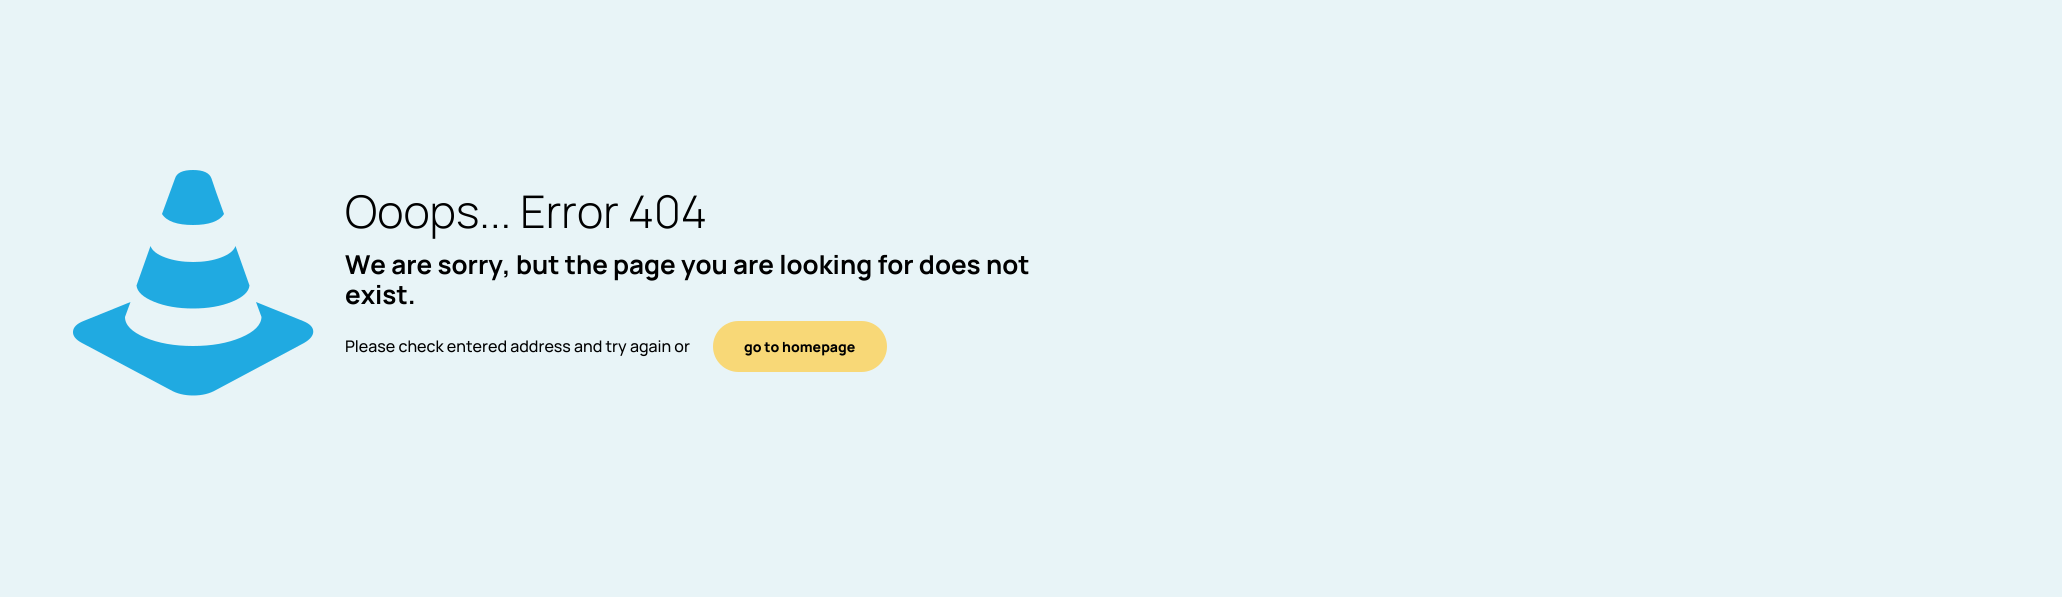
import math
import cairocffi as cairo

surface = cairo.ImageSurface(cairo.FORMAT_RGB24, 2062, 597)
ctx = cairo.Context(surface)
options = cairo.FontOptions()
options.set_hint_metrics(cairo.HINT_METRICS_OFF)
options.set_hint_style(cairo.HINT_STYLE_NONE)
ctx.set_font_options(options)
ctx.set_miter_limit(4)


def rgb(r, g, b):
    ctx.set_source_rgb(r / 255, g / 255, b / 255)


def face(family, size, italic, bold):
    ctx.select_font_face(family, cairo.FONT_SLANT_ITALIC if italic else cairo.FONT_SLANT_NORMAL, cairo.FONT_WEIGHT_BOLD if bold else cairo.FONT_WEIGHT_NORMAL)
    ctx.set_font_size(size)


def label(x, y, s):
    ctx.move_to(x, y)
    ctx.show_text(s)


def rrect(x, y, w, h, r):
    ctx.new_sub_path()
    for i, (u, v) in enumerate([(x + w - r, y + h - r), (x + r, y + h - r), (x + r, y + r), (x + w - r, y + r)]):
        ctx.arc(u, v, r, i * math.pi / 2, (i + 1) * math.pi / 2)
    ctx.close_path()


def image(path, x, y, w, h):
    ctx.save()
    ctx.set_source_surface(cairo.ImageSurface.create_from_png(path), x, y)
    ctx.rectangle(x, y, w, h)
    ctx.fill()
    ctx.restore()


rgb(232, 244, 247)
ctx.paint()
image('image0.png', 73, 170, 241, 226)
face('Manrope Light', 45, 0, 0)
rgb(0, 0, 0)
label(345, 228, 'Ooops... Error 404')
face('Manrope', 26, 0, 1)
label(345, 274, 'We are sorry, but the page you are looking for does not')
label(345, 304, 'exist.')
face('Manrope Medium', 16, 0, 0)
label(345, 352, 'Please check entered address and try again or')
rgb(248, 216, 119)
rrect(713, 321, 174, 51, 25.5)
ctx.fill()
face('Manrope ExtraBold', 14, 0, 0)
rgb(0, 0, 0)
label(744, 352, 'go to homepage')
surface.write_to_png('render.png')
